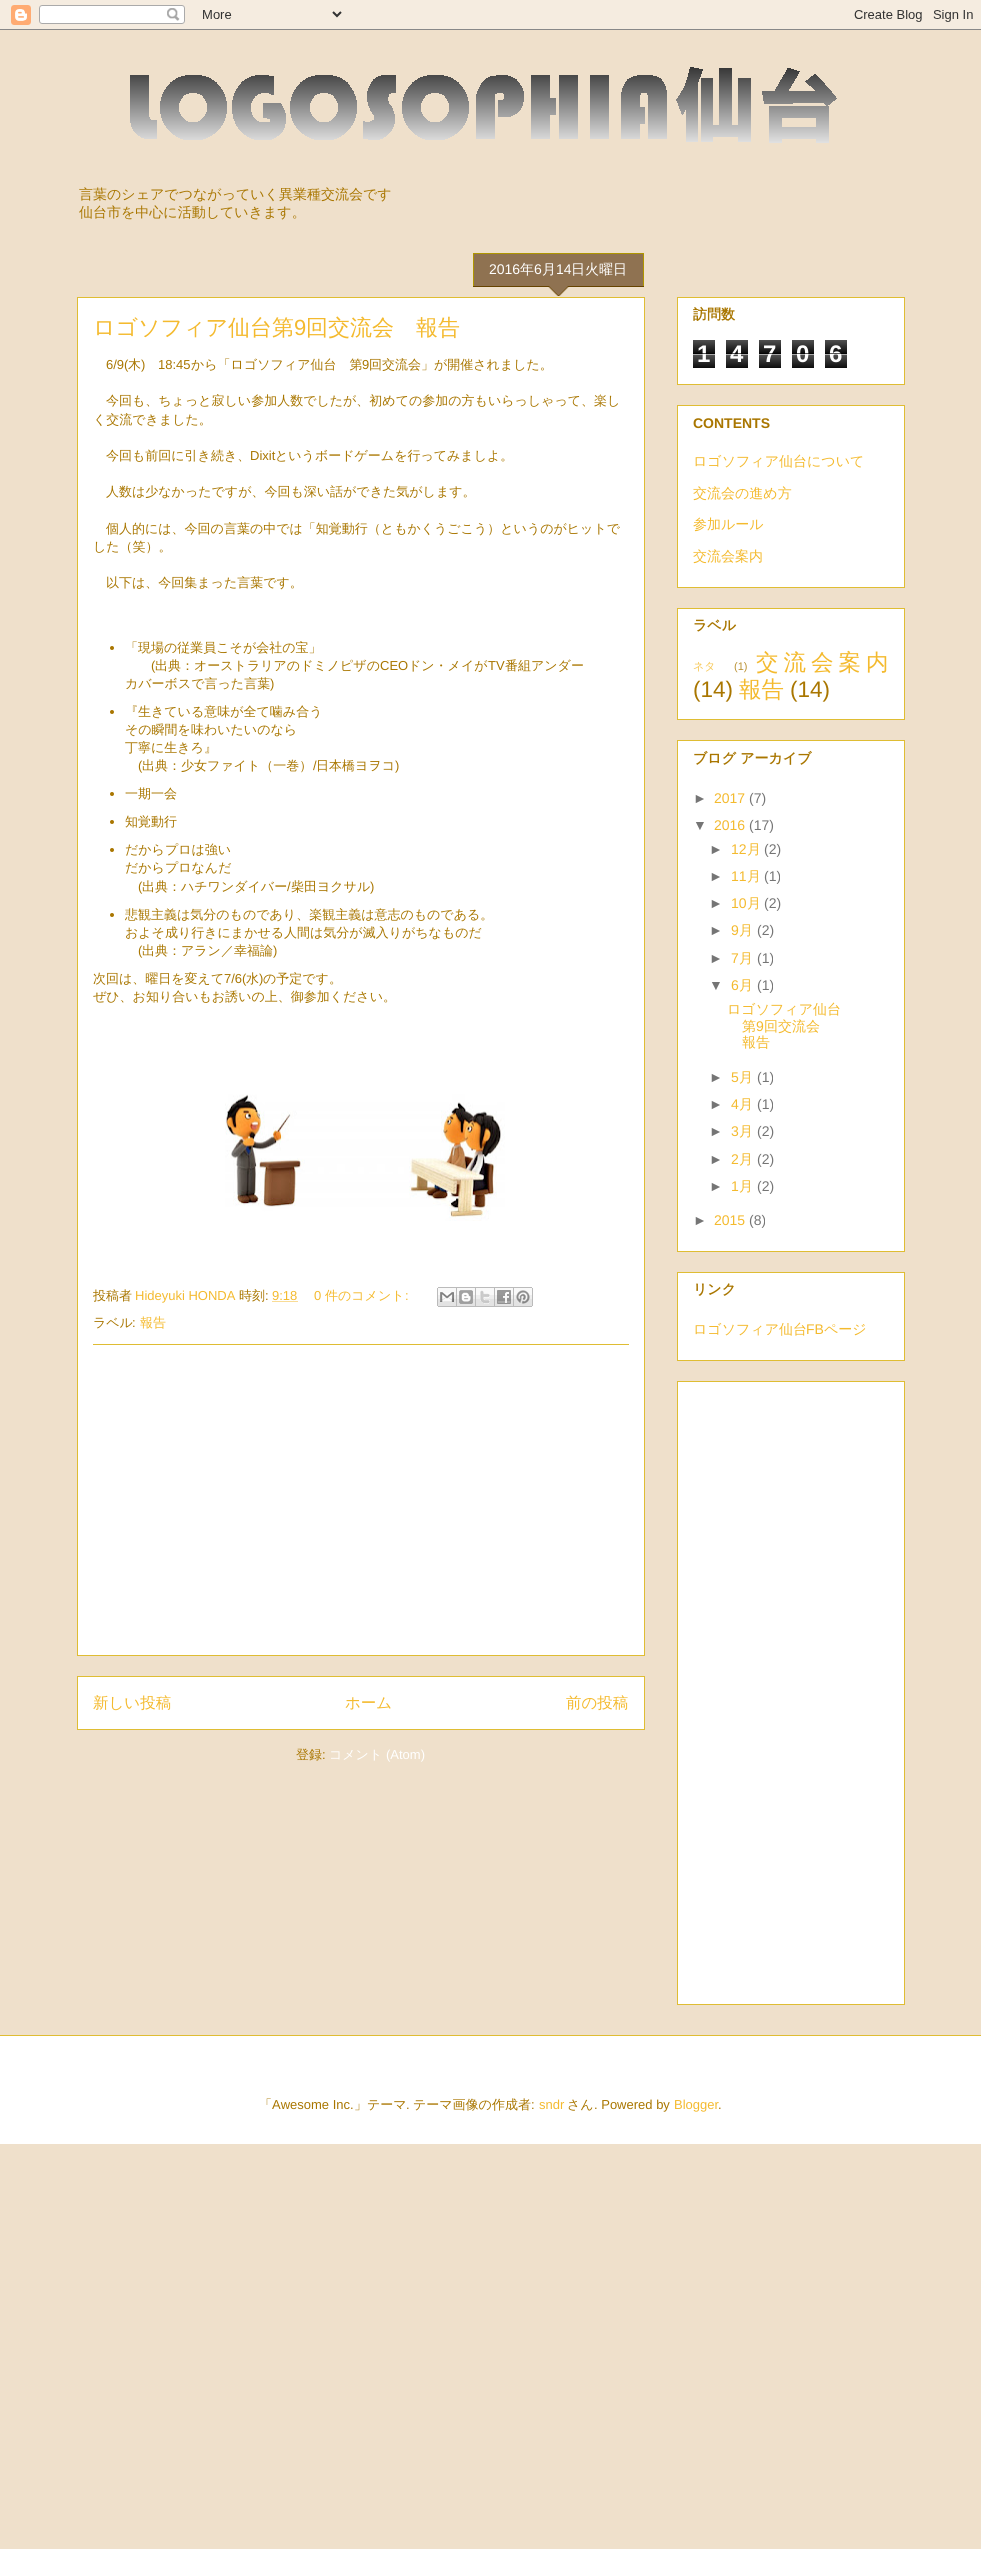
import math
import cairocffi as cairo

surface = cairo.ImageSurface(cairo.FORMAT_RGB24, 981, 2549)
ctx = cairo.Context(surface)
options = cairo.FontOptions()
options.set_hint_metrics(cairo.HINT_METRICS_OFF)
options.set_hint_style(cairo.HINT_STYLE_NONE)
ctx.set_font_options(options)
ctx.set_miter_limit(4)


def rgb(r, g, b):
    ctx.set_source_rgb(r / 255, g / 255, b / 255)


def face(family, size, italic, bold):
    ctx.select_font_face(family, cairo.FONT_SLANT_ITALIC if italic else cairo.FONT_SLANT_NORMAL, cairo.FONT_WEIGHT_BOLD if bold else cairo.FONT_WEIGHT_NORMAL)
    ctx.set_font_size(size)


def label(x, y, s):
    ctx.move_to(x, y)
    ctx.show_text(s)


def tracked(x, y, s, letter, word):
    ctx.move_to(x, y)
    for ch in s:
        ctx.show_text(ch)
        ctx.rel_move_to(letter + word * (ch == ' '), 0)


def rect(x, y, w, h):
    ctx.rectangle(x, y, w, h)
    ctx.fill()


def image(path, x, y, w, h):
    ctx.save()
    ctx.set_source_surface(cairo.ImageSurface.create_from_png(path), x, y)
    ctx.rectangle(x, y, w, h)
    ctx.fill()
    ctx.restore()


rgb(239, 224, 203)
ctx.paint()
image('image0.png', 0, 0, 981, 30)
image('image1.png', 130, 67, 707, 76)
face('WenQuanYi Zen Hei Medium', 14, 0, 0)
rgb(169, 118, 0)
label(79, 199, '言葉のシェアでつながっていく異業種交流会です')
label(79, 217, '仙台市を中心に活動していきます。')
rgb(255, 255, 255)
ctx.rectangle(77.5, 297.5, 567, 1358)
ctx.fill_preserve()
rgb(223, 189, 51)
ctx.set_line_width(1)
ctx.stroke()
image('image2.png', 473, 254, 171, 42)
rgb(176, 150, 0)
rect(473, 253, 171, 1)
rect(643, 254, 1, 32)
rect(473, 254, 1, 32)
face('Liberation Sans', 14, 0, 0)
rgb(255, 255, 255)
label(489, 274, '2016')
face('WenQuanYi Zen Hei Medium', 14, 0, 0)
label(520, 274, '年')
face('Liberation Sans', 14, 0, 0)
label(534, 274, '6')
face('WenQuanYi Zen Hei Medium', 14, 0, 0)
label(542, 274, '月')
face('Liberation Sans', 14, 0, 0)
label(556, 274, '14')
face('WenQuanYi Zen Hei Medium', 14, 0, 0)
label(571, 274, '日火曜日')
face('WenQuanYi Zen Hei Medium', 22, 0, 0)
rgb(244, 186, 46)
label(93, 335, 'ロゴソフィア仙台第')
face('Liberation Sans', 22, 0, 0)
label(294, 335, '9')
face('WenQuanYi Zen Hei Medium', 22, 0, 0)
label(306, 335, '回交流会　報告')
face('Liberation Sans', 13, 0, 0)
rgb(169, 118, 0)
label(106, 369, '6/9(')
face('WenQuanYi Zen Hei Medium', 13, 0, 0)
label(128, 369, '木')
face('Liberation Sans', 13, 0, 0)
label(141, 369, ')')
label(158, 369, '18:45')
face('WenQuanYi Zen Hei Medium', 13, 0, 0)
label(191, 369, 'から「ロゴソフィア仙台　第')
face('Liberation Sans', 13, 0, 0)
label(362, 369, '9')
face('WenQuanYi Zen Hei Medium', 13, 0, 0)
label(369, 369, '回交流会」が開催されました。')
label(106, 405, '今回も、ちょっと寂しい参加人数でしたが、初めての参加の方もいらっしゃって、楽し')
label(93, 424, 'く交流できました。')
label(106, 460, '今回も前回に引き続き、')
face('Liberation Sans', 13, 0, 0)
label(250, 460, 'Dixit')
face('WenQuanYi Zen Hei Medium', 13, 0, 0)
label(275, 460, 'というボードゲームを行ってみましよ。')
label(106, 496, '人数は少なかったですが、今回も深い話ができた気がします。')
label(106, 533, '個人的には、今回の言葉の中では「知覚動行（ともかくうごこう）というのがヒットで')
label(93, 551, 'した（笑）。')
label(106, 587, '以下は、今回集まった言葉です。')
ctx.new_path()
ctx.arc(112, 648, 2, 0, 2 * math.pi)
ctx.fill()
label(125, 652, '「現場の従業員こそが会社の宝」')
face('Liberation Sans', 13, 0, 0)
label(151, 670, '(')
face('WenQuanYi Zen Hei Medium', 13, 0, 0)
label(155, 670, '出典：オーストラリアのドミノピザの')
face('Liberation Sans', 13, 0, 0)
label(380, 670, 'CEO')
face('WenQuanYi Zen Hei Medium', 13, 0, 0)
label(408, 670, 'ドン・メイが')
face('Liberation Sans', 13, 0, 0)
label(488, 670, 'TV')
face('WenQuanYi Zen Hei Medium', 13, 0, 0)
label(505, 670, '番組アンダー')
label(125, 688, 'カバーボスで言った言葉')
face('Liberation Sans', 13, 0, 0)
label(270, 688, ')')
ctx.new_path()
ctx.arc(112, 712, 2, 0, 2 * math.pi)
ctx.fill()
face('WenQuanYi Zen Hei Medium', 13, 0, 0)
label(125, 716, '『生きている意味が全て噛み合う')
label(125, 734, 'その瞬間を味わいたいのなら')
label(125, 752, '丁寧に生きろ』')
face('Liberation Sans', 13, 0, 0)
label(138, 770, '(')
face('WenQuanYi Zen Hei Medium', 13, 0, 0)
label(142, 770, '出典：少女ファイト（一巻） 日本橋ヨヲコ')
face('Liberation Sans', 13, 0, 0)
label(313, 770, '/')
label(395, 770, ')')
ctx.new_path()
ctx.arc(112, 794, 2, 0, 2 * math.pi)
ctx.fill()
face('WenQuanYi Zen Hei Medium', 13, 0, 0)
label(125, 798, '一期一会')
ctx.new_path()
ctx.arc(112, 822, 2, 0, 2 * math.pi)
ctx.fill()
label(125, 826, '知覚動行')
ctx.new_path()
ctx.arc(112, 850, 2, 0, 2 * math.pi)
ctx.fill()
label(125, 854, 'だからプロは強い')
label(125, 872, 'だからプロなんだ')
face('Liberation Sans', 13, 0, 0)
label(138, 891, '(')
face('WenQuanYi Zen Hei Medium', 13, 0, 0)
label(142, 891, '出典：ハチワンダイバー')
face('Liberation Sans', 13, 0, 0)
label(287, 891, '/')
face('WenQuanYi Zen Hei Medium', 13, 0, 0)
label(291, 891, '柴田ヨクサル')
face('Liberation Sans', 13, 0, 0)
label(370, 891, ')')
ctx.new_path()
ctx.arc(112, 915, 2, 0, 2 * math.pi)
ctx.fill()
face('WenQuanYi Zen Hei Medium', 13, 0, 0)
label(125, 919, '悲観主義は気分のものであり、楽観主義は意志のものである。')
label(125, 937, 'およそ成り行きにまかせる人間は気分が滅入りがちなものだ')
face('Liberation Sans', 13, 0, 0)
label(138, 955, '(')
face('WenQuanYi Zen Hei Medium', 13, 0, 0)
label(142, 955, '出典：アラン／幸福論')
face('Liberation Sans', 13, 0, 0)
label(273, 955, ')')
face('WenQuanYi Zen Hei Medium', 13, 0, 0)
label(93, 983, '次回は、曜日を変えて')
face('Liberation Sans', 13, 0, 0)
label(224, 983, '7/6(')
face('WenQuanYi Zen Hei Medium', 13, 0, 0)
label(246, 983, '水')
face('Liberation Sans', 13, 0, 0)
label(259, 983, ')')
face('WenQuanYi Zen Hei Medium', 13, 0, 0)
label(263, 983, 'の予定です。')
label(93, 1001, 'ぜひ、お知り合いもお誘いの上、御参加ください。')
image('image3.png', 225, 1094, 280, 127)
label(93, 1300, '投稿者')
face('Liberation Sans', 13, 0, 0)
rgb(244, 186, 46)
label(135, 1300, 'Hideyuki HONDA')
face('WenQuanYi Zen Hei Medium', 13, 0, 0)
rgb(169, 118, 0)
label(239, 1300, '時刻')
face('Liberation Sans', 13, 0, 0)
label(265, 1300, ':')
rgb(244, 186, 46)
label(272, 1300, '9:18')
ctx.new_path()
ctx.move_to(272.5, 1301.5)
ctx.line_to(297.5, 1301.5)
ctx.set_dash([1, 1])
ctx.stroke()
label(314, 1300, '0')
face('WenQuanYi Zen Hei Medium', 13, 0, 0)
label(325, 1300, '件のコメント')
face('Liberation Sans', 13, 0, 0)
label(405, 1300, ':')
image('image4.png', 437, 1287, 20, 20)
image('image5.png', 457, 1287, 19, 20)
image('image6.png', 476, 1287, 19, 20)
image('image7.png', 495, 1287, 19, 20)
image('image8.png', 514, 1287, 19, 20)
face('WenQuanYi Zen Hei Medium', 13, 0, 0)
rgb(169, 118, 0)
label(93, 1327, 'ラベル')
face('Liberation Sans', 13, 0, 0)
label(132, 1327, ':')
face('WenQuanYi Zen Hei Medium', 13, 0, 0)
rgb(244, 186, 46)
label(140, 1327, '報告')
rgb(223, 189, 51)
rect(93, 1344, 536, 1)
rgb(255, 255, 255)
ctx.rectangle(77.5, 1676.5, 567, 53)
ctx.fill_preserve()
rgb(223, 189, 51)
ctx.set_dash([])
ctx.stroke()
face('WenQuanYi Zen Hei Medium', 15.5, 0, 0)
rgb(244, 186, 46)
label(93, 1708, '新しい投稿')
label(345, 1708, 'ホーム')
label(566, 1708, '前の投稿')
face('WenQuanYi Zen Hei Medium', 13, 0, 0)
rgb(169, 118, 0)
label(296, 1759, '登録')
face('Liberation Sans', 13, 0, 0)
label(322, 1759, ':')
face('WenQuanYi Zen Hei Medium', 13, 0, 0)
rgb(255, 255, 255)
label(329, 1759, 'コメント')
face('Liberation Sans', 13, 0, 0)
label(386, 1759, '(Atom)')
ctx.rectangle(677.5, 297.5, 227, 87)
ctx.fill_preserve()
rgb(223, 189, 51)
ctx.stroke()
face('WenQuanYi Zen Hei', 14, 0, 1)
rgb(169, 118, 0)
label(693, 319, '訪問数')
image('image9.png', 693, 340, 22, 28)
face('Liberation Sans', 24, 0, 1)
rgb(255, 255, 255)
label(697, 362, '1')
ctx.set_source_rgba(0, 0, 0, 0.65)
rect(693, 353, 22, 1)
ctx.set_source_rgba(1, 1, 1, 0.65)
rect(693, 354, 22, 1)
image('image9.png', 726, 340, 22, 28)
rgb(255, 255, 255)
label(730, 362, '4')
ctx.set_source_rgba(0, 0, 0, 0.65)
rect(726, 353, 22, 1)
ctx.set_source_rgba(1, 1, 1, 0.65)
rect(726, 354, 22, 1)
image('image9.png', 759, 340, 22, 28)
rgb(255, 255, 255)
label(763, 362, '7')
ctx.set_source_rgba(0, 0, 0, 0.65)
rect(759, 353, 22, 1)
ctx.set_source_rgba(1, 1, 1, 0.65)
rect(759, 354, 22, 1)
image('image9.png', 792, 340, 22, 28)
rgb(255, 255, 255)
label(796, 362, '0')
ctx.set_source_rgba(0, 0, 0, 0.65)
rect(792, 353, 22, 1)
ctx.set_source_rgba(1, 1, 1, 0.65)
rect(792, 354, 22, 1)
image('image9.png', 825, 340, 22, 28)
rgb(255, 255, 255)
label(829, 362, '6')
ctx.set_source_rgba(0, 0, 0, 0.65)
rect(825, 353, 22, 1)
ctx.set_source_rgba(1, 1, 1, 0.65)
rect(825, 354, 22, 1)
rgb(255, 255, 255)
ctx.rectangle(677.5, 405.5, 227, 182)
ctx.fill_preserve()
rgb(223, 189, 51)
ctx.stroke()
face('Liberation Sans', 14, 0, 1)
rgb(169, 118, 0)
label(693, 428, 'CONTENTS')
face('WenQuanYi Zen Hei Medium', 14, 0, 0)
rgb(244, 186, 46)
label(693, 466, 'ロゴソフィア仙台について')
label(693, 498, '交流会の進め方')
label(693, 529, '参加ルール')
label(693, 561, '交流会案内')
rgb(255, 255, 255)
ctx.rectangle(677.5, 608.5, 227, 111)
ctx.fill_preserve()
rgb(223, 189, 51)
ctx.stroke()
face('WenQuanYi Zen Hei', 14, 0, 1)
rgb(169, 118, 0)
label(693, 630, 'ラベル')
face('WenQuanYi Zen Hei Medium', 11, 0, 0)
rgb(246, 200, 88)
label(693, 670, 'ネタ')
face('Liberation Sans', 11, 0, 0)
rgb(186, 145, 51)
label(734, 670, '(1)')
face('WenQuanYi Zen Hei Medium', 22.5, 0, 0)
rgb(244, 186, 46)
tracked(756, 670, '交流会案内', 5, 0)
face('Liberation Sans', 22.5, 0, 0)
rgb(169, 118, 0)
label(693, 697, '(14)')
face('WenQuanYi Zen Hei Medium', 22.5, 0, 0)
rgb(244, 186, 46)
label(739, 697, '報告')
face('Liberation Sans', 22.5, 0, 0)
rgb(169, 118, 0)
label(790, 697, '(14)')
rgb(255, 255, 255)
ctx.rectangle(677.5, 740.5, 227, 511)
ctx.fill_preserve()
rgb(223, 189, 51)
ctx.stroke()
face('WenQuanYi Zen Hei', 14, 0, 1)
rgb(169, 118, 0)
label(693, 763, 'ブログ アーカイブ')
face('Liberation Sans', 14, 0, 0)
rgb(117, 117, 117)
label(693, 803, '►')
rgb(244, 186, 46)
label(714, 803, '2017')
rgb(117, 117, 117)
label(749, 803, '(7)')
label(693, 830, '▼')
rgb(244, 186, 46)
label(714, 830, '2016')
rgb(117, 117, 117)
label(749, 830, '(17)')
label(709, 854, '►')
rgb(244, 186, 46)
label(731, 854, '12')
face('WenQuanYi Zen Hei Medium', 14, 0, 0)
label(747, 854, '月')
face('Liberation Sans', 14, 0, 0)
rgb(117, 117, 117)
label(764, 854, '(2)')
label(709, 881, '►')
rgb(244, 186, 46)
label(731, 881, '11')
face('WenQuanYi Zen Hei Medium', 14, 0, 0)
label(747, 881, '月')
face('Liberation Sans', 14, 0, 0)
rgb(117, 117, 117)
label(764, 881, '(1)')
label(709, 908, '►')
rgb(244, 186, 46)
label(731, 908, '10')
face('WenQuanYi Zen Hei Medium', 14, 0, 0)
label(747, 908, '月')
face('Liberation Sans', 14, 0, 0)
rgb(117, 117, 117)
label(764, 908, '(2)')
label(709, 935, '►')
rgb(244, 186, 46)
label(731, 935, '9')
face('WenQuanYi Zen Hei Medium', 14, 0, 0)
label(739, 935, '月')
face('Liberation Sans', 14, 0, 0)
rgb(117, 117, 117)
label(757, 935, '(2)')
label(709, 963, '►')
rgb(244, 186, 46)
label(731, 963, '7')
face('WenQuanYi Zen Hei Medium', 14, 0, 0)
label(739, 963, '月')
face('Liberation Sans', 14, 0, 0)
rgb(117, 117, 117)
label(757, 963, '(1)')
label(709, 990, '▼')
rgb(244, 186, 46)
label(731, 990, '6')
face('WenQuanYi Zen Hei Medium', 14, 0, 0)
label(739, 990, '月')
face('Liberation Sans', 14, 0, 0)
rgb(117, 117, 117)
label(757, 990, '(1)')
face('WenQuanYi Zen Hei Medium', 14, 0, 0)
rgb(244, 186, 46)
label(727, 1014, 'ロゴソフィア仙台')
label(742, 1031, '第')
face('Liberation Sans', 14, 0, 0)
label(756, 1031, '9')
face('WenQuanYi Zen Hei Medium', 14, 0, 0)
label(764, 1031, '回交流会')
label(742, 1047, '報告')
face('Liberation Sans', 14, 0, 0)
rgb(117, 117, 117)
label(709, 1082, '►')
rgb(244, 186, 46)
label(731, 1082, '5')
face('WenQuanYi Zen Hei Medium', 14, 0, 0)
label(739, 1082, '月')
face('Liberation Sans', 14, 0, 0)
rgb(117, 117, 117)
label(757, 1082, '(1)')
label(709, 1109, '►')
rgb(244, 186, 46)
label(731, 1109, '4')
face('WenQuanYi Zen Hei Medium', 14, 0, 0)
label(739, 1109, '月')
face('Liberation Sans', 14, 0, 0)
rgb(117, 117, 117)
label(757, 1109, '(1)')
label(709, 1136, '►')
rgb(244, 186, 46)
label(731, 1136, '3')
face('WenQuanYi Zen Hei Medium', 14, 0, 0)
label(739, 1136, '月')
face('Liberation Sans', 14, 0, 0)
rgb(117, 117, 117)
label(757, 1136, '(2)')
label(709, 1164, '►')
rgb(244, 186, 46)
label(731, 1164, '2')
face('WenQuanYi Zen Hei Medium', 14, 0, 0)
label(739, 1164, '月')
face('Liberation Sans', 14, 0, 0)
rgb(117, 117, 117)
label(757, 1164, '(2)')
label(709, 1191, '►')
rgb(244, 186, 46)
label(731, 1191, '1')
face('WenQuanYi Zen Hei Medium', 14, 0, 0)
label(739, 1191, '月')
face('Liberation Sans', 14, 0, 0)
rgb(117, 117, 117)
label(757, 1191, '(2)')
label(693, 1225, '►')
rgb(244, 186, 46)
label(714, 1225, '2015')
rgb(117, 117, 117)
label(749, 1225, '(8)')
rgb(255, 255, 255)
ctx.rectangle(677.5, 1272.5, 227, 88)
ctx.fill_preserve()
rgb(223, 189, 51)
ctx.stroke()
face('WenQuanYi Zen Hei', 14, 0, 1)
rgb(169, 118, 0)
label(693, 1294, 'リンク')
face('WenQuanYi Zen Hei Medium', 14, 0, 0)
rgb(244, 186, 46)
label(693, 1334, 'ロゴソフィア仙台')
face('Liberation Sans', 14, 0, 0)
label(806, 1334, 'FB')
face('WenQuanYi Zen Hei Medium', 14, 0, 0)
label(824, 1334, 'ページ')
rgb(255, 255, 255)
ctx.rectangle(677.5, 1381.5, 227, 623)
ctx.fill_preserve()
rgb(223, 189, 51)
ctx.stroke()
rgb(255, 255, 255)
rect(0, 2036, 981, 108)
rgb(223, 189, 51)
rect(0, 2035, 981, 1)
face('WenQuanYi Zen Hei Medium', 13, 0, 0)
rgb(169, 118, 0)
label(259, 2109, '「')
face('Liberation Sans', 13, 0, 0)
label(272, 2109, 'Awesome Inc.')
face('WenQuanYi Zen Hei Medium', 13, 0, 0)
label(354, 2109, '」テーマ')
face('Liberation Sans', 13, 0, 0)
label(406, 2109, '.')
face('WenQuanYi Zen Hei Medium', 13, 0, 0)
label(413, 2109, 'テーマ画像の作成者')
face('Liberation Sans', 13, 0, 0)
label(531, 2109, ':')
rgb(244, 186, 46)
label(539, 2109, 'sndr')
face('WenQuanYi Zen Hei Medium', 13, 0, 0)
rgb(169, 118, 0)
label(567, 2109, 'さん')
face('Liberation Sans', 13, 0, 0)
label(594, 2109, '. Powered by')
rgb(244, 186, 46)
label(674, 2109, 'Blogger')
rgb(169, 118, 0)
label(718, 2109, '.')
surface.write_to_png('render.png')
